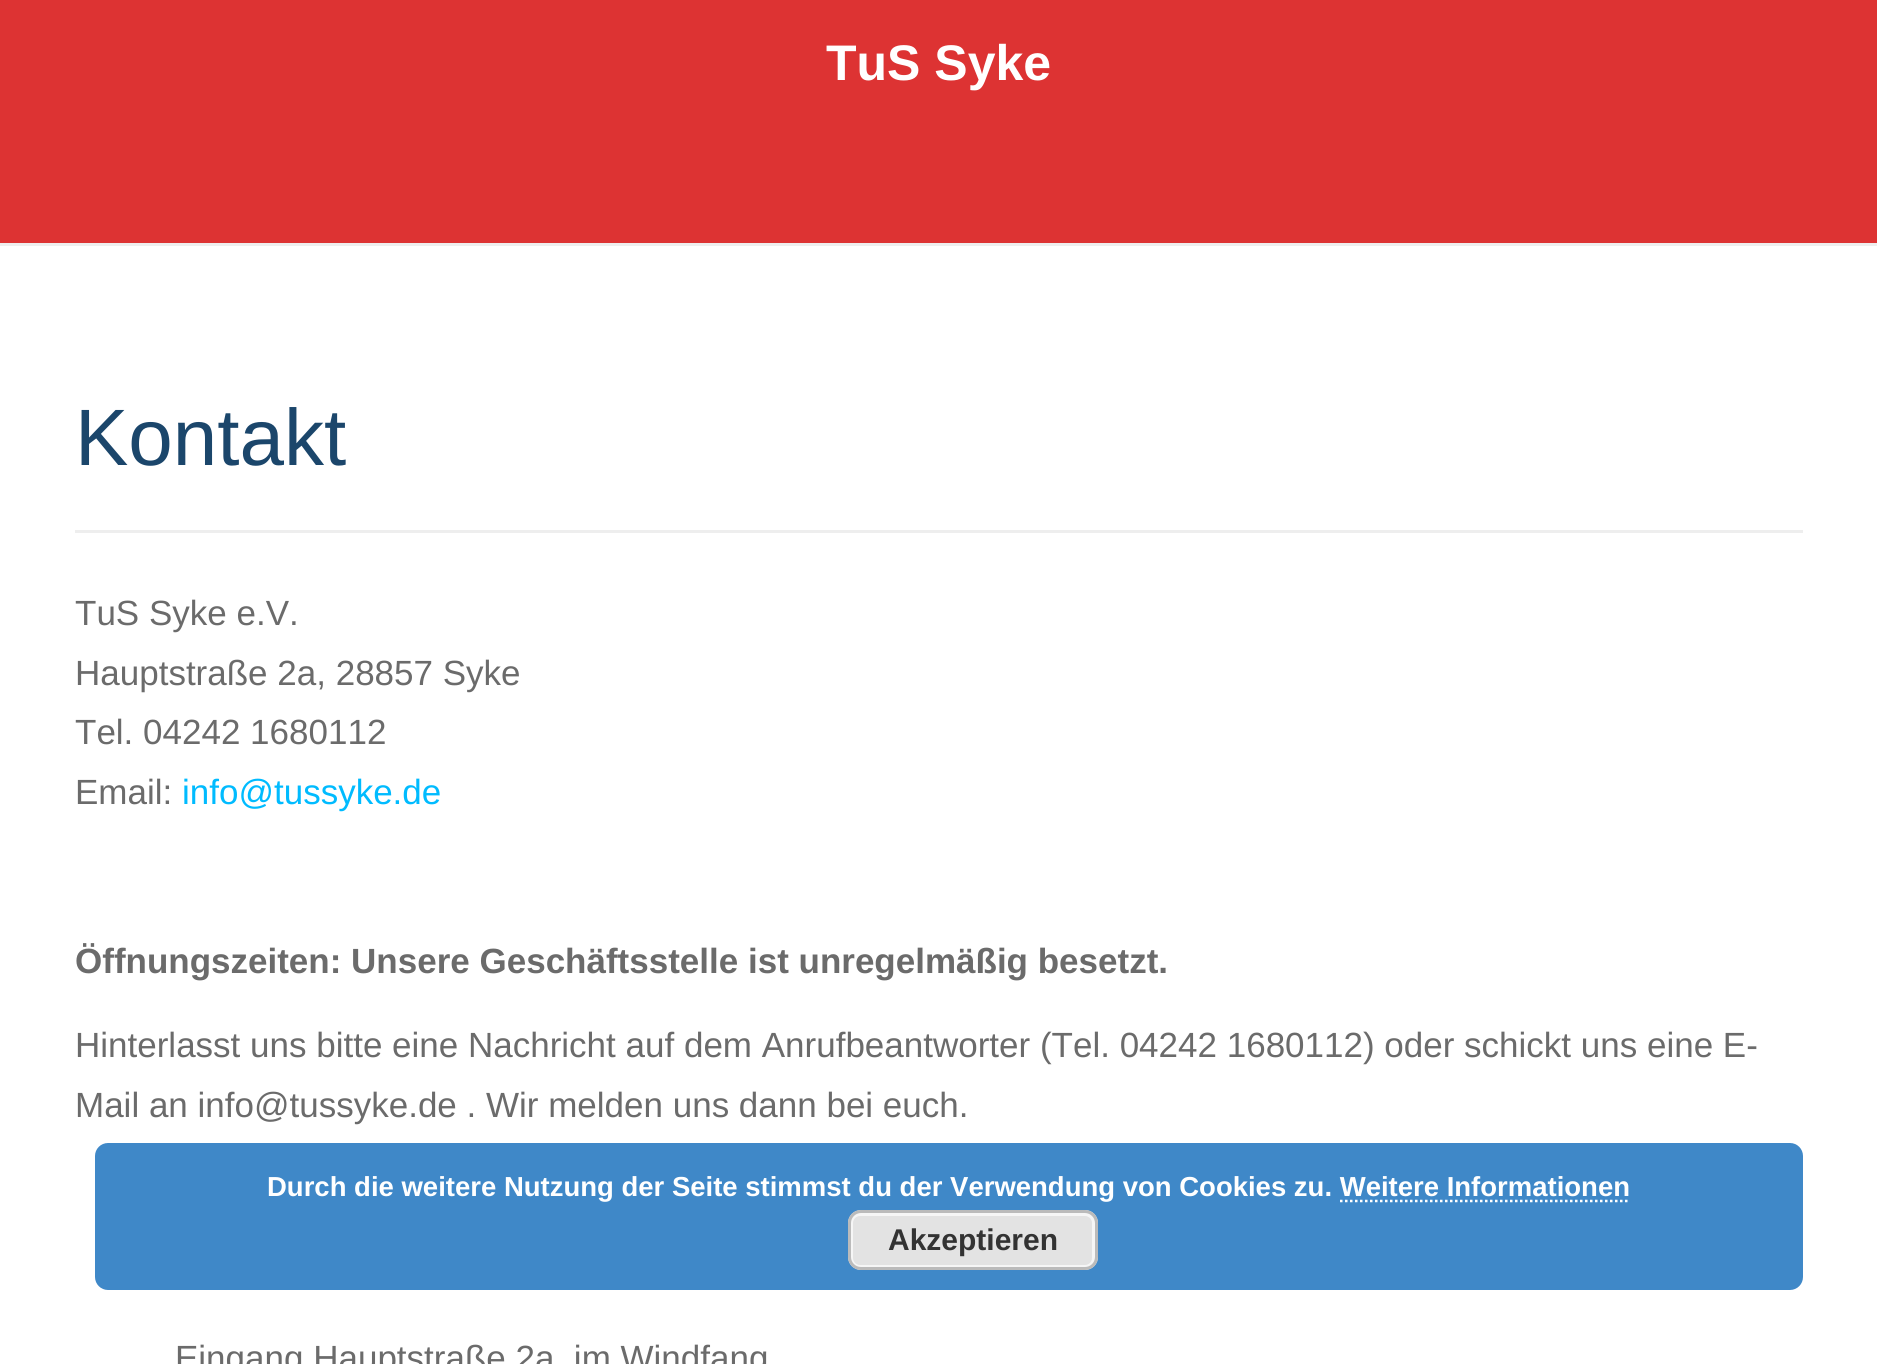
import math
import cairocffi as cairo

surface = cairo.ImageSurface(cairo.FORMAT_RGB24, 1877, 1364)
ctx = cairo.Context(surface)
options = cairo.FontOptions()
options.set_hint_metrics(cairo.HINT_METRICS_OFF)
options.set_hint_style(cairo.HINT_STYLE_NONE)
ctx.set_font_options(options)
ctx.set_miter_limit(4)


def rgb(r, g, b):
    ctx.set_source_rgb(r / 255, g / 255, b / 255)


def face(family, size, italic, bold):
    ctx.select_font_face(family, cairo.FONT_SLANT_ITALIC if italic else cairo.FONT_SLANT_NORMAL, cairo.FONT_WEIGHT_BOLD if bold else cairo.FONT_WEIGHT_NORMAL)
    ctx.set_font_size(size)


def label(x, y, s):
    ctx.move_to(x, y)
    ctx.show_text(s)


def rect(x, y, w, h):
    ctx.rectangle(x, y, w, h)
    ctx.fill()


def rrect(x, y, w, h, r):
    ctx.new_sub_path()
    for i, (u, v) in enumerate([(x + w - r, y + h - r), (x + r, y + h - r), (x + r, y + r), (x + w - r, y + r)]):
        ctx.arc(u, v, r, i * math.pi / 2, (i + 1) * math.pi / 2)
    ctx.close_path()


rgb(255, 255, 255)
ctx.paint()
rgb(221, 51, 51)
rect(0, 0, 1877, 243)
face('Liberation Sans', 50, 0, 1)
rgb(255, 255, 255)
label(826, 80, 'TuS Syke')
rgb(238, 238, 238)
rect(0, 243, 1877, 3)
rect(75, 530, 1728, 3)
face('Liberation Sans', 80, 0, 0)
rgb(27, 70, 107)
label(75, 465, 'Kontakt')
face('Liberation Sans', 35, 0, 0)
rgb(107, 107, 107)
label(75, 625, 'TuS Syke e.V.')
label(75, 685, 'Hauptstraße 2a, 28857 Syke')
label(75, 744, 'Tel. 04242 1680112')
label(75, 804, 'Email:')
rgb(0, 187, 255)
label(182, 804, 'info@tussyke.de')
face('Liberation Sans', 35, 0, 1)
rgb(107, 107, 107)
label(75, 973, 'Öffnungszeiten: Unsere Geschäftsstelle ist unregelmäßig besetzt.')
face('Liberation Sans', 35, 0, 0)
label(75, 1057, 'Hinterlasst uns bitte eine Nachricht auf dem Anrufbeantworter (Tel. 04242 1680112) oder schickt uns eine E-')
label(75, 1117, 'Mail an info@tussyke.de . Wir melden uns dann bei euch.')
label(175, 1370, 'Eingang Hauptstraße 2a, im Windfang')
ctx.set_source_rgba(0.118, 0.451, 0.745, 0.85)
rrect(95, 1143, 1708, 147, 13)
ctx.fill()
face('Liberation Sans', 27.5, 0, 1)
rgb(255, 255, 255)
label(267, 1196, 'Durch die weitere Nutzung der Seite stimmst du der Verwendung von Cookies zu. Weitere Informationen')
ctx.new_path()
ctx.move_to(1340, 1201)
ctx.line_to(1630, 1201)
ctx.set_line_width(2.5)
ctx.set_dash([2.5, 2.5])
ctx.stroke()
rgb(227, 227, 227)
rrect(848, 1210, 250, 60, 13)
ctx.fill()
rrect(851.5, 1214.5, 242, 52, 8.5)
rgb(246, 246, 246)
ctx.set_line_width(3)
ctx.set_dash([])
ctx.stroke()
rrect(849.5, 1211.5, 247, 57, 11.5)
rgb(187, 187, 187)
ctx.stroke()
face('Liberation Sans', 30, 0, 1)
rgb(51, 51, 51)
label(888, 1250, 'Akzeptieren')
surface.write_to_png('render.png')
